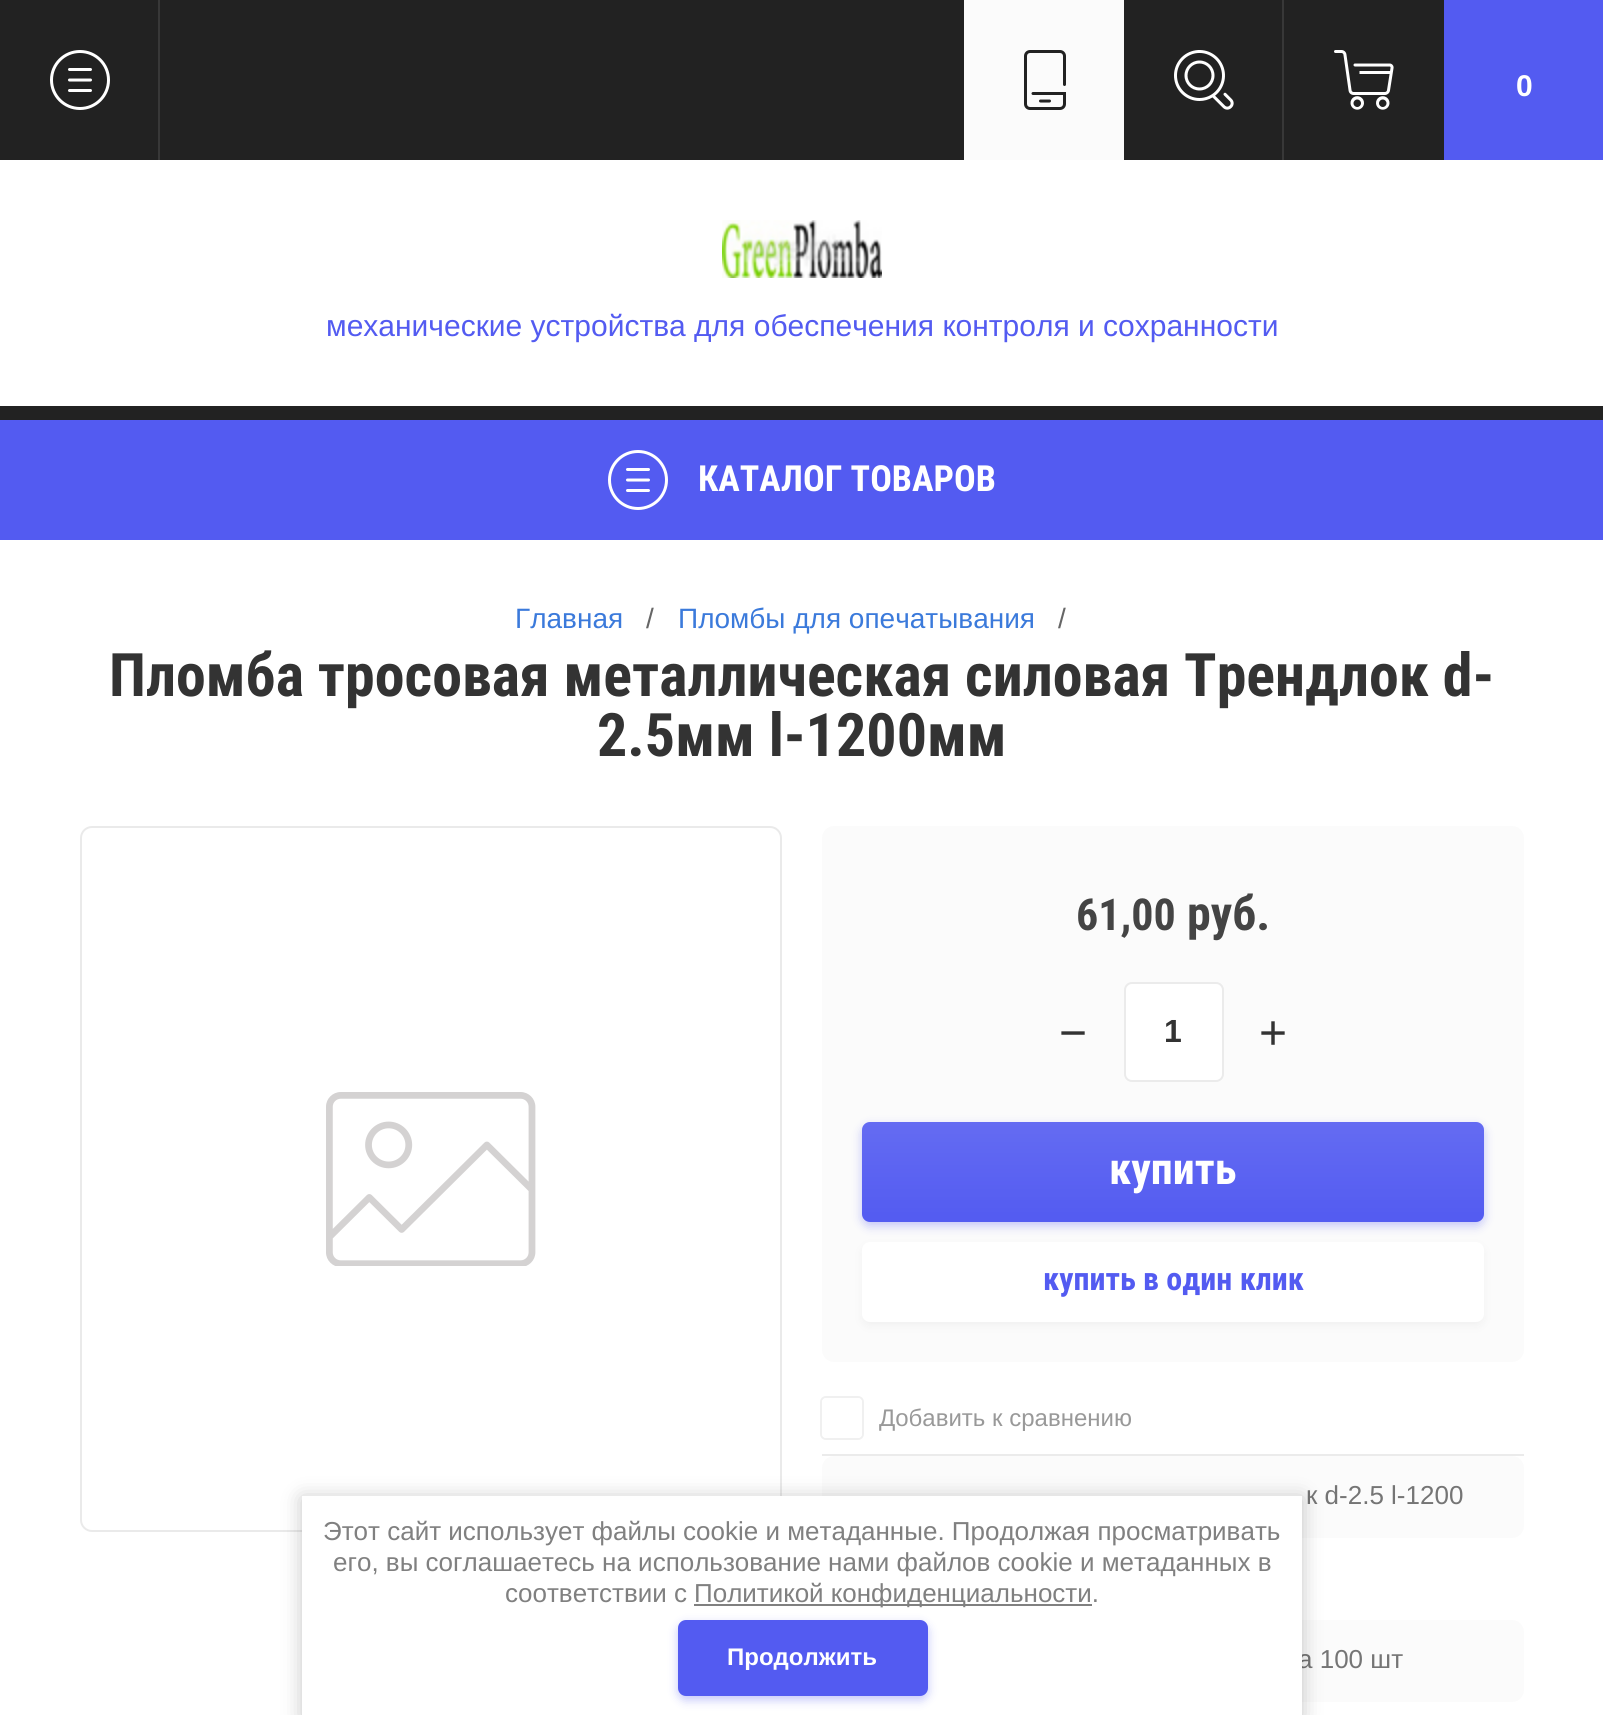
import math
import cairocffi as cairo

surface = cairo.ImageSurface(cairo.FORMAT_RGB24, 1603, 1715)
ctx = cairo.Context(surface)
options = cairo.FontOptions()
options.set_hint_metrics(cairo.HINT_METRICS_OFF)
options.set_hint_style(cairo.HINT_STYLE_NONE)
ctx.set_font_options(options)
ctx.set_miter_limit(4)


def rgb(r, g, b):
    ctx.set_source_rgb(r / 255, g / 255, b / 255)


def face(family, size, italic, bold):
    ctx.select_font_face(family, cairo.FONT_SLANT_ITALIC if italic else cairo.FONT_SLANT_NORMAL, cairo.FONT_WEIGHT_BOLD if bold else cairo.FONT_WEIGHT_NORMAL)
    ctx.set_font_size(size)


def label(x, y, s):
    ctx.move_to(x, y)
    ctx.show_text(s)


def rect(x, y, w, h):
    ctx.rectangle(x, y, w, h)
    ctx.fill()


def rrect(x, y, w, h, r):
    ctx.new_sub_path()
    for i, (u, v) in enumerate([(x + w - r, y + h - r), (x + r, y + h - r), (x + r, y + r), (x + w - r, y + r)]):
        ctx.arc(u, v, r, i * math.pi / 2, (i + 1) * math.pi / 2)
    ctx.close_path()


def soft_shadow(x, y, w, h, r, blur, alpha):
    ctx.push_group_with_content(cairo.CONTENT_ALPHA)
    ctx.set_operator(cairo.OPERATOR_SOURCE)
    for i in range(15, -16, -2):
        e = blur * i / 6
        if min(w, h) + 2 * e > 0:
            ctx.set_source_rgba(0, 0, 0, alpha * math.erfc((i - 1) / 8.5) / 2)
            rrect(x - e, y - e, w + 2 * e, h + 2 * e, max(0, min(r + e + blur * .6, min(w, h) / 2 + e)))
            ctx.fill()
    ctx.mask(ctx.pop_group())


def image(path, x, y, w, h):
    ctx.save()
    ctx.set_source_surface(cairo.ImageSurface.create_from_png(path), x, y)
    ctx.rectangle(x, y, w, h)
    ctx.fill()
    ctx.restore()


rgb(255, 255, 255)
ctx.paint()
rgb(34, 34, 34)
rect(0, 0, 1603, 420)
image('image0.png', 50, 50, 60, 60)
rgb(56, 56, 56)
rect(158, 0, 2, 160)
rgb(251, 251, 251)
rect(964, 0, 160, 160)
image('image1.png', 1024, 50, 42, 60)
image('image2.png', 1174, 50, 60, 60)
rgb(56, 56, 56)
rect(1282, 0, 2, 160)
image('image3.png', 1334, 50, 60, 60)
rgb(83, 91, 241)
rect(1444, 0, 159, 160)
face('Liberation Sans', 30, 0, 1)
rgb(255, 255, 255)
label(1516, 96, '0')
rect(0, 160, 1603, 246)
image('image4.png', 722, 220, 160, 58)
face('Liberation Sans', 30, 0, 0)
rgb(83, 91, 241)
label(326, 336, 'механические устройства для обеспечения контроля и сохранности')
rect(0, 420, 1603, 120)
image('image5.png', 608, 450, 60, 60)
face('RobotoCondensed', 36, 0, 1)
rgb(255, 255, 255)
label(698, 491, 'КАТАЛОГ ТОВАРОВ')
face('Liberation Sans', 28, 0, 0)
rgb(59, 122, 219)
label(515, 628, 'Главная')
rgb(102, 102, 102)
label(646, 628, '/')
rgb(59, 122, 219)
label(678, 628, 'Пломбы для опечатывания')
rgb(102, 102, 102)
label(1058, 628, '/')
face('RobotoCondensed', 60, 0, 1)
rgb(51, 51, 51)
label(109, 696, 'Пломба тросовая металлическая силовая Трендлок d-')
label(597, 756, '2.5мм l-1200мм')
image('image6.png', 326, 1092, 210, 174)
rrect(81, 827, 700, 704, 11)
rgb(234, 234, 234)
ctx.stroke()
rgb(251, 251, 251)
rrect(822, 826, 702, 536, 12)
ctx.fill()
face('RobotoCondensed', 44, 0, 1)
rgb(68, 68, 68)
label(1076, 930, '61,00')
face('RobotoCondensed', 48, 0, 1)
label(1187, 930, 'руб.')
face('Liberation Sans', 48, 0, 0)
rgb(51, 51, 51)
label(1059, 1049, '−')
rgb(255, 255, 255)
rrect(1125, 983, 98, 98, 7)
ctx.fill_preserve()
rgb(235, 235, 235)
ctx.stroke()
face('Liberation Sans', 32, 0, 1)
rgb(51, 51, 51)
label(1164, 1042, '1')
face('Liberation Sans', 48, 0, 0)
label(1259, 1049, '+')
rgb(83, 91, 241)
soft_shadow(862, 1126, 622, 100, 8, 5, 0.34)
rgb(83, 91, 241)
rrect(862, 1122, 622, 100, 8)
ctx.fill()
gradient = cairo.LinearGradient(1173, 1122, 1173, 1222)
gradient.add_color_stop_rgba(0, 1, 1, 1, 0.1)
gradient.add_color_stop_rgba(1, 1, 1, 1, 0)
ctx.set_source(gradient)
rrect(862, 1122, 622, 100, 8)
ctx.fill()
face('RobotoCondensed', 44, 0, 1)
rgb(255, 255, 255)
label(1109, 1184, 'купить')
rgb(221, 221, 221)
soft_shadow(862, 1246, 622, 80, 8, 4, 0.34)
rgb(255, 255, 255)
rrect(862, 1242, 622, 80, 8)
ctx.fill()
face('RobotoCondensed', 32, 0, 1)
rgb(83, 91, 241)
label(1043, 1290, 'купить в один клик')
rgb(235, 235, 235)
rect(822, 1454, 702, 2)
rrect(821, 1397, 42, 42, 5)
rgb(240, 240, 240)
ctx.stroke()
rgb(255, 255, 255)
rrect(822, 1398, 40, 40, 4)
ctx.fill()
face('Liberation Sans', 24, 0, 0)
rgb(153, 153, 153)
label(879, 1426, 'Добавить к сравнению')
rgb(251, 251, 251)
rrect(822, 1456, 702, 82, 12)
ctx.fill()
face('Liberation Sans', 26, 0, 0)
rgb(117, 117, 117)
label(1306, 1504, 'к d-2.5 l-1200')
rgb(251, 251, 251)
rrect(822, 1620, 702, 82, 12)
ctx.fill()
rgb(117, 117, 117)
label(1298, 1668, 'а 100 шт')
rgb(0, 0, 0)
soft_shadow(302, 1498, 1000, 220, 0, 10, 0.23)
rgb(255, 255, 255)
rect(302, 1496, 1000, 219)
rgb(128, 128, 128)
label(323, 1540, 'Этот сайт использует файлы cookie и метаданные. Продолжая просматривать')
label(333, 1571, 'его, вы соглашаетесь на использование нами файлов cookie и метаданных в')
label(505, 1602, 'соответствии с')
rect(694, 1604, 398, 2)
label(694, 1602, 'Политикой конфиденциальности.')
rgb(83, 91, 241)
soft_shadow(678, 1624, 250, 76, 8, 5, 0.34)
rgb(83, 91, 241)
rrect(678, 1620, 250, 76, 8)
ctx.fill()
face('Liberation Sans', 24, 0, 1)
rgb(255, 255, 255)
label(727, 1665, 'Продолжить')
surface.write_to_png('render.png')
